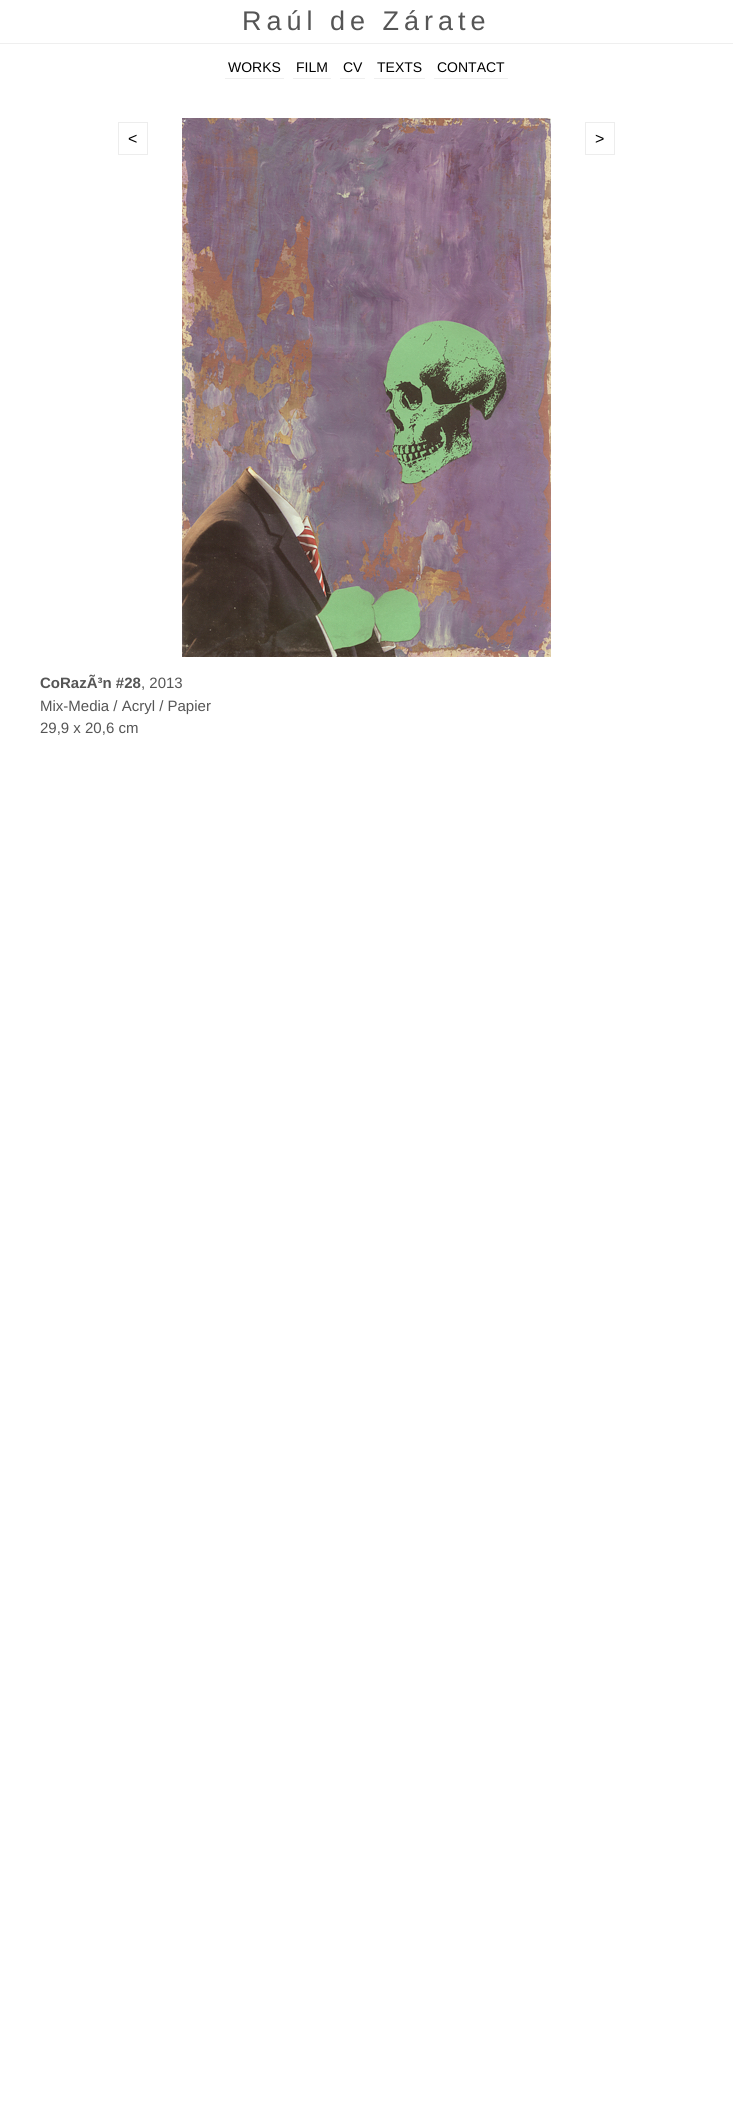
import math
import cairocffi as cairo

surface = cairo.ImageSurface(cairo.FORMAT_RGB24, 733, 2120)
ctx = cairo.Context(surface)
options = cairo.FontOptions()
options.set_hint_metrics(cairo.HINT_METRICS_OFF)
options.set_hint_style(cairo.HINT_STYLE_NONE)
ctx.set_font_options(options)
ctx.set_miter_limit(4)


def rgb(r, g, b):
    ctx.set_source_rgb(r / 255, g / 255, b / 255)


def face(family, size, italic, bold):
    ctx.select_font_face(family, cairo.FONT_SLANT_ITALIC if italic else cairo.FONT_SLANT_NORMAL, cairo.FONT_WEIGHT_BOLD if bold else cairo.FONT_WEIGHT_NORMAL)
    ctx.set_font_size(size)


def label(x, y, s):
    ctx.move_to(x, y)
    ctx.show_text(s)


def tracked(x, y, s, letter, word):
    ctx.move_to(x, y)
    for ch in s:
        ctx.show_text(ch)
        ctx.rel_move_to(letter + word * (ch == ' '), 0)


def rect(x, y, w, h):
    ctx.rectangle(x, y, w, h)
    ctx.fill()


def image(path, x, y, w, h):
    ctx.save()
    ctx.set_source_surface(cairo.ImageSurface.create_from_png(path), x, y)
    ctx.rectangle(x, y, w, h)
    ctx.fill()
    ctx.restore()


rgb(255, 255, 255)
ctx.paint()
rgb(239, 239, 239)
rect(0, 43, 733, 1)
face('Liberation Sans', 27, 0, 0)
rgb(85, 85, 85)
tracked(242, 30, 'Raúl de Zárate', 5, 0)
face('Liberation Sans', 14, 0, 0)
rgb(0, 0, 0)
label(228, 72, 'WORKS')
rgb(239, 239, 239)
rect(225, 78, 59, 1)
rgb(0, 0, 0)
label(296, 72, 'FILM')
rgb(239, 239, 239)
rect(293, 78, 38, 1)
rgb(0, 0, 0)
label(343, 72, 'CV')
rgb(239, 239, 239)
rect(340, 78, 25, 1)
rgb(0, 0, 0)
label(377, 72, 'TEXTS')
rgb(239, 239, 239)
rect(374, 78, 51, 1)
rgb(0, 0, 0)
label(437, 72, 'CONTACT')
rgb(239, 239, 239)
rect(434, 78, 74, 1)
ctx.rectangle(118.5, 122.5, 29, 32)
rgb(237, 237, 237)
ctx.set_line_width(1)
ctx.stroke()
face('Liberation Sans', 16, 0, 0)
rgb(0, 0, 0)
label(128, 144, '<')
image('image0.png', 182, 118, 369, 539)
ctx.rectangle(585.5, 122.5, 29, 32)
rgb(237, 237, 237)
ctx.stroke()
rgb(0, 0, 0)
label(595, 144, '>')
face('Liberation Sans', 15, 0, 1)
rgb(85, 85, 85)
label(40, 688, 'CoRazÃ³n #28')
face('Liberation Sans', 15, 0, 0)
label(141, 688, ', 2013')
label(40, 711, 'Mix-Media / Acryl / Papier')
label(40, 733, '29,9 x 20,6 cm')
surface.write_to_png('render.png')
